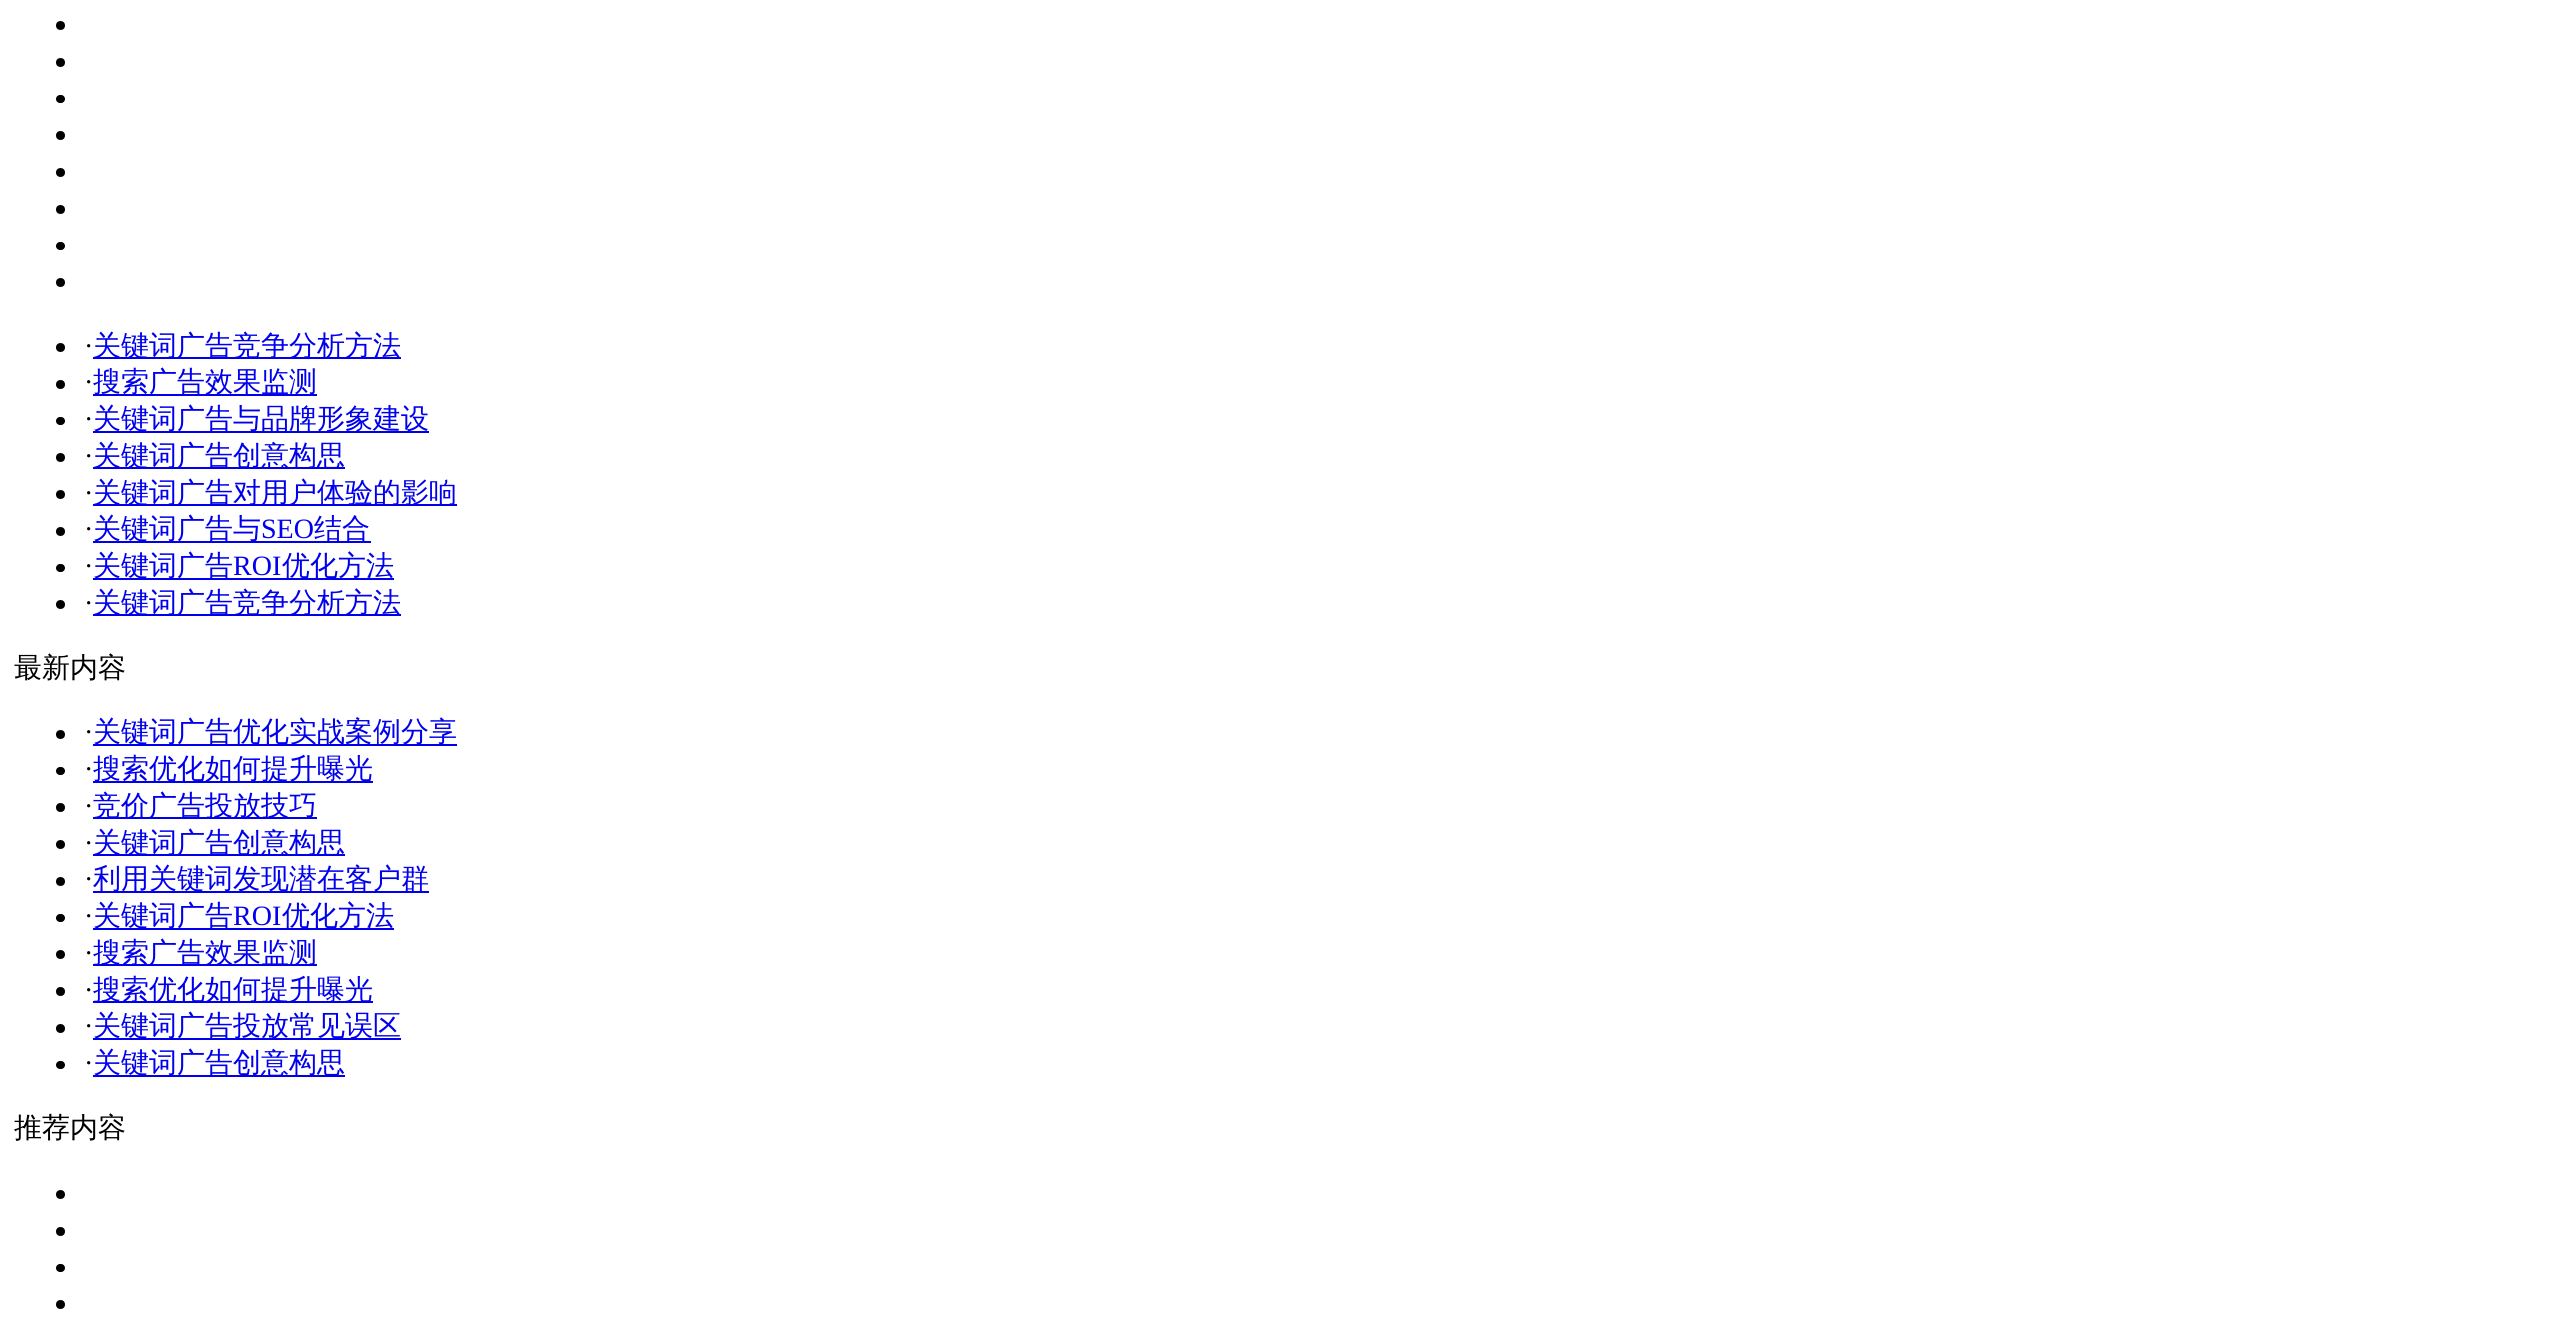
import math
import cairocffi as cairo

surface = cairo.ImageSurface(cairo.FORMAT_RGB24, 2558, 1332)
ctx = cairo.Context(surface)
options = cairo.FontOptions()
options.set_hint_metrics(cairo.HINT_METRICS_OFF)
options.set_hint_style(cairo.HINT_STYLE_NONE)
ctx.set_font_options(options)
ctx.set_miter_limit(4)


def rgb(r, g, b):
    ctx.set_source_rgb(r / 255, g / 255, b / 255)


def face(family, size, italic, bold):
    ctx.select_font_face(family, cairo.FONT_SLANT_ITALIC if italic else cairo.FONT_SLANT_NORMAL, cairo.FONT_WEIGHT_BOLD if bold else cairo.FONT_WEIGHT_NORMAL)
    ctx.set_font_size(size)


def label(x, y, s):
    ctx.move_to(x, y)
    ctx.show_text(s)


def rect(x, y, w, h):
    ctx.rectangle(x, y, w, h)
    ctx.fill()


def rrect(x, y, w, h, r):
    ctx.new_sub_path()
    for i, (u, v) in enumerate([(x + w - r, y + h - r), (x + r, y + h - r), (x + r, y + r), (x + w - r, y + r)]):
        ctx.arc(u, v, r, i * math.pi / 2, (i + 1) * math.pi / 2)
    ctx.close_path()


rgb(255, 255, 255)
ctx.paint()
rgb(0, 0, 0)
ctx.arc(60.5, 25.5, 4.5, 0, 2 * math.pi)
ctx.fill()
ctx.arc(60.5, 62.5, 4.5, 0, 2 * math.pi)
ctx.fill()
rrect(56, 95, 9, 8, 4)
ctx.fill()
ctx.arc(60.5, 135.5, 4.5, 0, 2 * math.pi)
ctx.fill()
ctx.arc(60.5, 172.5, 4.5, 0, 2 * math.pi)
ctx.fill()
ctx.arc(60.5, 209.5, 4.5, 0, 2 * math.pi)
ctx.fill()
rrect(56, 242, 9, 8, 4)
ctx.fill()
ctx.arc(60.5, 282.5, 4.5, 0, 2 * math.pi)
ctx.fill()
ctx.arc(60.5, 347.5, 4.5, 0, 2 * math.pi)
ctx.fill()
face('Liberation Serif', 28, 0, 0)
label(84, 355, '·')
rgb(0, 0, 238)
rect(93, 357, 308, 2)
face('WenQuanYi Zen Hei Medium', 28, 0, 0)
label(93, 355, '关键词广告竞争分析方法')
rgb(0, 0, 0)
ctx.new_path()
ctx.arc(60.5, 384.5, 4.5, 0, 2 * math.pi)
ctx.fill()
face('Liberation Serif', 28, 0, 0)
label(84, 391, '·')
rgb(0, 0, 238)
rect(93, 394, 224, 2)
face('WenQuanYi Zen Hei Medium', 28, 0, 0)
label(93, 391, '搜索广告效果监测')
rgb(0, 0, 0)
rrect(56, 417, 9, 8, 4)
ctx.fill()
face('Liberation Serif', 28, 0, 0)
label(84, 428, '·')
rgb(0, 0, 238)
rect(93, 431, 336, 2)
face('WenQuanYi Zen Hei Medium', 28, 0, 0)
label(93, 428, '关键词广告与品牌形象建设')
rgb(0, 0, 0)
ctx.new_path()
ctx.arc(60.5, 457.5, 4.5, 0, 2 * math.pi)
ctx.fill()
face('Liberation Serif', 28, 0, 0)
label(84, 465, '·')
rgb(0, 0, 238)
rect(93, 467, 252, 2)
face('WenQuanYi Zen Hei Medium', 28, 0, 0)
label(93, 465, '关键词广告创意构思')
rgb(0, 0, 0)
ctx.new_path()
ctx.arc(60.5, 494.5, 4.5, 0, 2 * math.pi)
ctx.fill()
face('Liberation Serif', 28, 0, 0)
label(84, 502, '·')
rgb(0, 0, 238)
rect(93, 504, 364, 2)
face('WenQuanYi Zen Hei Medium', 28, 0, 0)
label(93, 502, '关键词广告对用户体验的影响')
rgb(0, 0, 0)
ctx.new_path()
ctx.arc(60.5, 531.5, 4.5, 0, 2 * math.pi)
ctx.fill()
face('Liberation Serif', 28, 0, 0)
label(84, 538, '·')
rgb(0, 0, 238)
rect(93, 541, 278, 2)
face('WenQuanYi Zen Hei Medium', 28, 0, 0)
label(93, 538, '关键词广告与')
face('Liberation Serif', 28, 0, 0)
label(261, 538, 'SEO')
face('WenQuanYi Zen Hei Medium', 28, 0, 0)
label(314, 538, '结合')
rgb(0, 0, 0)
rrect(56, 564, 9, 8, 4)
ctx.fill()
face('Liberation Serif', 28, 0, 0)
label(84, 575, '·')
rgb(0, 0, 238)
rect(93, 578, 301, 2)
face('WenQuanYi Zen Hei Medium', 28, 0, 0)
label(93, 575, '关键词广告')
face('Liberation Serif', 28, 0, 0)
label(233, 575, 'ROI')
face('WenQuanYi Zen Hei Medium', 28, 0, 0)
label(282, 575, '优化方法')
rgb(0, 0, 0)
ctx.new_path()
ctx.arc(60.5, 604.5, 4.5, 0, 2 * math.pi)
ctx.fill()
face('Liberation Serif', 28, 0, 0)
label(84, 612, '·')
rgb(0, 0, 238)
rect(93, 614, 308, 2)
face('WenQuanYi Zen Hei Medium', 28, 0, 0)
label(93, 612, '关键词广告竞争分析方法')
rgb(0, 0, 0)
label(14, 677, '最新内容')
ctx.new_path()
ctx.arc(60.5, 734.5, 4.5, 0, 2 * math.pi)
ctx.fill()
face('Liberation Serif', 28, 0, 0)
label(84, 741, '·')
rgb(0, 0, 238)
rect(93, 744, 364, 2)
face('WenQuanYi Zen Hei Medium', 28, 0, 0)
label(93, 741, '关键词广告优化实战案例分享')
rgb(0, 0, 0)
rrect(56, 767, 9, 8, 4)
ctx.fill()
face('Liberation Serif', 28, 0, 0)
label(84, 778, '·')
rgb(0, 0, 238)
rect(93, 781, 280, 2)
face('WenQuanYi Zen Hei Medium', 28, 0, 0)
label(93, 778, '搜索优化如何提升曝光')
rgb(0, 0, 0)
ctx.new_path()
ctx.arc(60.5, 807.5, 4.5, 0, 2 * math.pi)
ctx.fill()
face('Liberation Serif', 28, 0, 0)
label(84, 815, '·')
rgb(0, 0, 238)
rect(93, 817, 224, 2)
face('WenQuanYi Zen Hei Medium', 28, 0, 0)
label(93, 815, '竞价广告投放技巧')
rgb(0, 0, 0)
ctx.new_path()
ctx.arc(60.5, 844.5, 4.5, 0, 2 * math.pi)
ctx.fill()
face('Liberation Serif', 28, 0, 0)
label(84, 852, '·')
rgb(0, 0, 238)
rect(93, 854, 252, 2)
face('WenQuanYi Zen Hei Medium', 28, 0, 0)
label(93, 852, '关键词广告创意构思')
rgb(0, 0, 0)
ctx.new_path()
ctx.arc(60.5, 881.5, 4.5, 0, 2 * math.pi)
ctx.fill()
face('Liberation Serif', 28, 0, 0)
label(84, 888, '·')
rgb(0, 0, 238)
rect(93, 891, 336, 2)
face('WenQuanYi Zen Hei Medium', 28, 0, 0)
label(93, 888, '利用关键词发现潜在客户群')
rgb(0, 0, 0)
rrect(56, 914, 9, 8, 4)
ctx.fill()
face('Liberation Serif', 28, 0, 0)
label(84, 925, '·')
rgb(0, 0, 238)
rect(93, 928, 301, 2)
face('WenQuanYi Zen Hei Medium', 28, 0, 0)
label(93, 925, '关键词广告')
face('Liberation Serif', 28, 0, 0)
label(233, 925, 'ROI')
face('WenQuanYi Zen Hei Medium', 28, 0, 0)
label(282, 925, '优化方法')
rgb(0, 0, 0)
ctx.new_path()
ctx.arc(60.5, 954.5, 4.5, 0, 2 * math.pi)
ctx.fill()
face('Liberation Serif', 28, 0, 0)
label(84, 962, '·')
rgb(0, 0, 238)
rect(93, 964, 224, 2)
face('WenQuanYi Zen Hei Medium', 28, 0, 0)
label(93, 962, '搜索广告效果监测')
rgb(0, 0, 0)
ctx.new_path()
ctx.arc(60.5, 991.5, 4.5, 0, 2 * math.pi)
ctx.fill()
face('Liberation Serif', 28, 0, 0)
label(84, 999, '·')
rgb(0, 0, 238)
rect(93, 1001, 280, 2)
face('WenQuanYi Zen Hei Medium', 28, 0, 0)
label(93, 999, '搜索优化如何提升曝光')
rgb(0, 0, 0)
ctx.new_path()
ctx.arc(60.5, 1028.5, 4.5, 0, 2 * math.pi)
ctx.fill()
face('Liberation Serif', 28, 0, 0)
label(84, 1035, '·')
rgb(0, 0, 238)
rect(93, 1038, 308, 2)
face('WenQuanYi Zen Hei Medium', 28, 0, 0)
label(93, 1035, '关键词广告投放常见误区')
rgb(0, 0, 0)
rrect(56, 1061, 9, 8, 4)
ctx.fill()
face('Liberation Serif', 28, 0, 0)
label(84, 1072, '·')
rgb(0, 0, 238)
rect(93, 1075, 252, 2)
face('WenQuanYi Zen Hei Medium', 28, 0, 0)
label(93, 1072, '关键词广告创意构思')
rgb(0, 0, 0)
label(14, 1137, '推荐内容')
ctx.new_path()
ctx.arc(60.5, 1194.5, 4.5, 0, 2 * math.pi)
ctx.fill()
ctx.arc(60.5, 1231.5, 4.5, 0, 2 * math.pi)
ctx.fill()
rrect(56, 1264, 9, 8, 4)
ctx.fill()
ctx.arc(60.5, 1304.5, 4.5, 0, 2 * math.pi)
ctx.fill()
surface.write_to_png('render.png')
